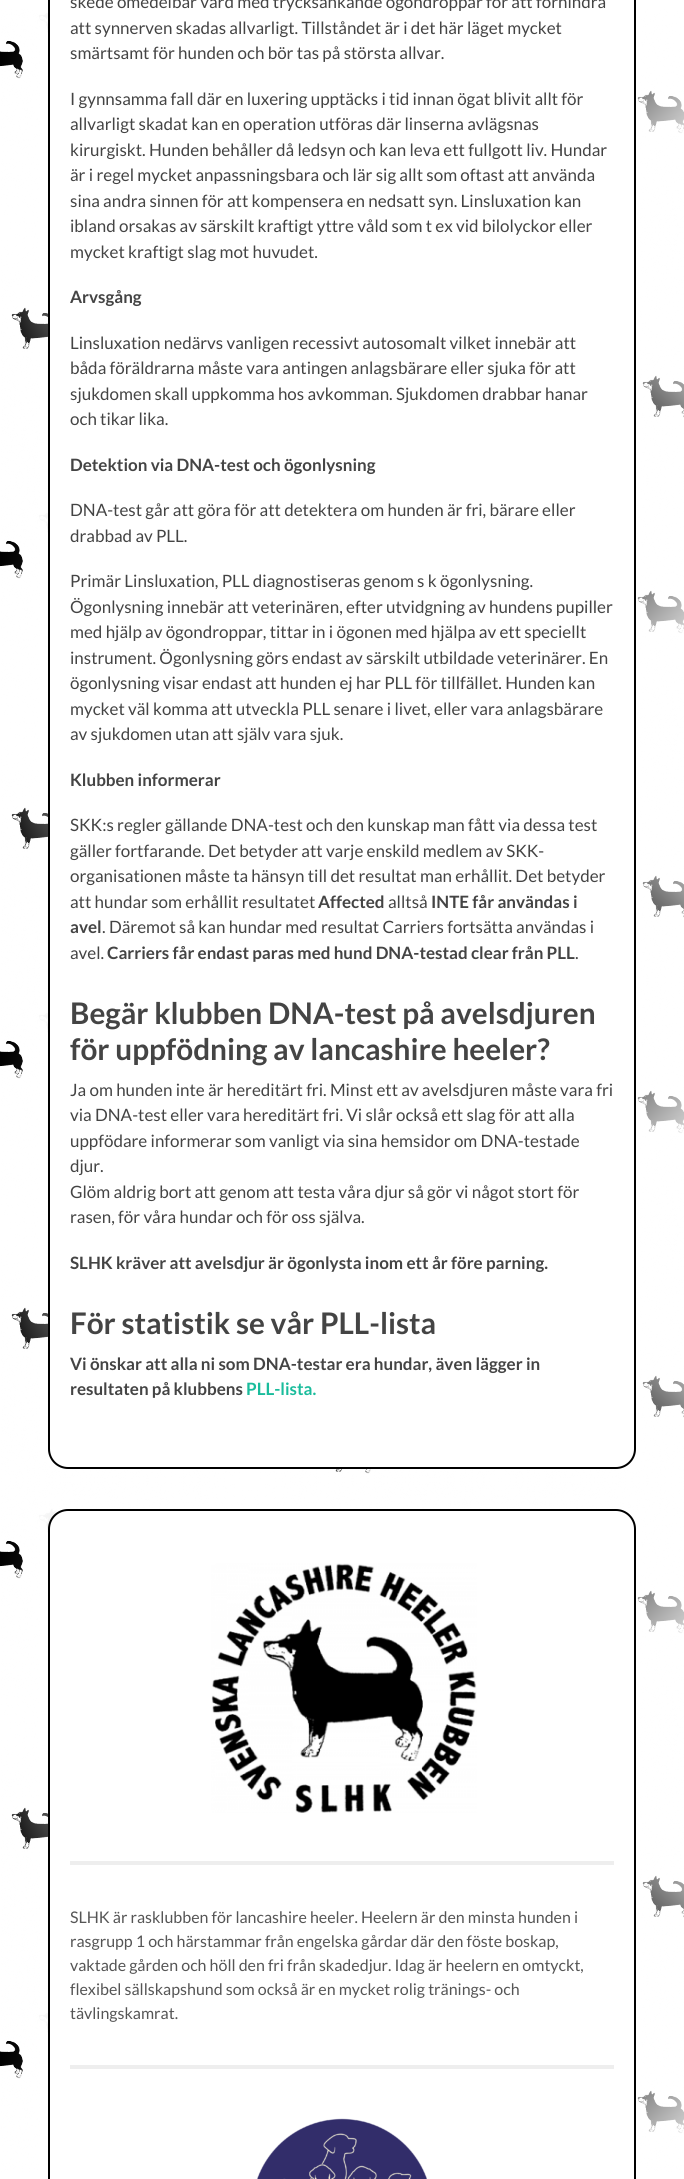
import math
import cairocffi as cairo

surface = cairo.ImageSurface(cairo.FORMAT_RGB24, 684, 2179)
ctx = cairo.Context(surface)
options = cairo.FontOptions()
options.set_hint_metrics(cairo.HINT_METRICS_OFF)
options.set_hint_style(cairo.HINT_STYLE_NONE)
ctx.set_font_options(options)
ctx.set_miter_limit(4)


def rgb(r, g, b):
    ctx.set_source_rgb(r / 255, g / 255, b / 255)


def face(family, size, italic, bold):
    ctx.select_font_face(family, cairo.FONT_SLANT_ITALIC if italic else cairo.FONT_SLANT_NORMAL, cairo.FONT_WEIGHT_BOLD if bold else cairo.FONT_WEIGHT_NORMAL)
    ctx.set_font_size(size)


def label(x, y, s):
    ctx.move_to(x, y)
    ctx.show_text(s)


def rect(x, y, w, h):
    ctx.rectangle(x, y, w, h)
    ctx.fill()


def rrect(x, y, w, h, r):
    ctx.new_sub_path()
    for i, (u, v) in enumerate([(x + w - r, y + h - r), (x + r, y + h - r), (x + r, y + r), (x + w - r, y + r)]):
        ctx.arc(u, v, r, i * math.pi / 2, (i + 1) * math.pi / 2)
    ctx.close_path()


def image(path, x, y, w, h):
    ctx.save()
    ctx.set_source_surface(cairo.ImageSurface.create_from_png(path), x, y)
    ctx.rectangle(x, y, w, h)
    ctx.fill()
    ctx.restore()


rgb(255, 255, 255)
ctx.paint()
image('image0.png', 0, 9, 684, 2163)
rgb(255, 255, 255)
rrect(49, -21, 586, 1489, 19)
ctx.fill_preserve()
rgb(0, 0, 0)
ctx.stroke()
face('Lato', 17, 0, 0)
rgb(68, 68, 68)
label(70, 8, 'skede omedelbar vård med trycksänkande ögondroppar för att förhindra')
label(70, 34, 'att synnerven skadas allvarligt. Tillståndet är i det här läget mycket')
label(70, 59, 'smärtsamt för hunden och bör tas på största allvar.')
label(70, 105, 'I gynnsamma fall där en luxering upptäcks i tid innan ögat blivit allt för')
label(70, 130, 'allvarligt skadat kan en operation utföras där linserna avlägsnas')
label(70, 156, 'kirurgiskt. Hunden behåller då ledsyn och kan leva ett fullgott liv. Hundar')
label(70, 181, 'är i regel mycket anpassningsbara och lär sig allt som oftast att använda')
label(70, 207, 'sina andra sinnen för att kompensera en nedsatt syn. Linsluxation kan')
label(70, 232, 'ibland orsakas av särskilt kraftigt yttre våld som t ex vid bilolyckor eller')
label(70, 258, 'mycket kraftigt slag mot huvudet.')
face('Lato', 17, 0, 1)
label(70, 303, 'Arvsgång')
face('Lato', 17, 0, 0)
label(70, 349, 'Linsluxation nedärvs vanligen recessivt autosomalt vilket innebär att')
label(70, 374, 'båda föräldrarna måste vara antingen anlagsbärare eller sjuka för att')
label(70, 400, 'sjukdomen skall uppkomma hos avkomman. Sjukdomen drabbar hanar')
label(70, 425, 'och tikar lika.')
face('Lato', 17, 0, 1)
label(70, 471, 'Detektion via DNA-test och ögonlysning')
face('Lato', 17, 0, 0)
label(70, 516, 'DNA-test går att göra för att detektera om hunden är fri, bärare eller')
label(70, 542, 'drabbad av PLL.')
label(70, 587, 'Primär Linsluxation, PLL diagnostiseras genom s k ögonlysning.')
label(70, 613, 'Ögonlysning innebär att veterinären, efter utvidgning av hundens pupiller')
label(70, 638, 'med hjälp av ögondroppar, tittar in i ögonen med hjälpa av ett speciellt')
label(70, 664, 'instrument. Ögonlysning görs endast av särskilt utbildade veterinärer. En')
label(70, 689, 'ögonlysning visar endast att hunden ej har PLL för tillfället. Hunden kan')
label(70, 715, 'mycket väl komma att utveckla PLL senare i livet, eller vara anlagsbärare')
label(70, 740, 'av sjukdomen utan att själv vara sjuk.')
face('Lato', 17, 0, 1)
label(70, 786, 'Klubben informerar')
face('Lato', 17, 0, 0)
label(70, 831, 'SKK:s regler gällande DNA-test och den kunskap man fått via dessa test')
label(70, 857, 'gäller fortfarande. Det betyder att varje enskild medlem av SKK-')
label(70, 882, 'organisationen måste ta hänsyn till det resultat man erhållit. Det betyder')
label(70, 908, 'att hundar som erhållit resultatet')
face('Lato', 17, 0, 1)
label(318, 908, 'Affected')
face('Lato', 17, 0, 0)
label(388, 908, 'alltså')
face('Lato', 17, 0, 1)
label(431, 908, 'INTE får användas i')
label(70, 933, 'avel')
face('Lato', 17, 0, 0)
label(102, 933, '. Däremot så kan hundar med resultat Carriers fortsätta användas i')
label(70, 959, 'avel.')
face('Lato', 17, 0, 1)
label(107, 959, 'Carriers får endast paras med hund DNA-testad clear från PLL')
face('Lato', 17, 0, 0)
label(575, 959, '.')
face('Lato', 29.75, 0, 1)
label(70, 1024, 'Begär klubben DNA-test på avelsdjuren')
label(70, 1060, 'för uppfödning av lancashire heeler?')
face('Lato', 17, 0, 0)
label(70, 1096, 'Ja om hunden inte är hereditärt fri. Minst ett av avelsdjuren måste vara fri')
label(70, 1121, 'via DNA-test eller vara hereditärt fri. Vi slår också ett slag för att alla')
label(70, 1147, 'uppfödare informerar som vanligt via sina hemsidor om DNA-testade')
label(70, 1172, 'djur.')
label(70, 1198, 'Glöm aldrig bort att genom att testa våra djur så gör vi något stort för')
label(70, 1223, 'rasen, för våra hundar och för oss själva.')
face('Lato', 17, 0, 1)
label(70, 1269, 'SLHK kräver att avelsdjur är ögonlysta inom ett år före parning.')
face('Lato', 29.75, 0, 1)
label(70, 1334, 'För statistik se vår PLL-lista')
face('Lato', 17, 0, 1)
label(70, 1370, 'Vi önskar att alla ni som DNA-testar era hundar, även lägger in')
label(70, 1395, 'resultaten på klubbens')
rgb(26, 188, 156)
label(246, 1395, 'PLL-lista.')
rgb(255, 255, 255)
rrect(49, 1510, 586, 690, 19)
ctx.fill_preserve()
rgb(0, 0, 0)
ctx.stroke()
rgb(238, 238, 238)
rect(70, 1861, 544, 4)
image('image1.png', 211, 1563, 266, 250)
rect(70, 2065, 544, 4)
face('Lato', 16, 0, 0)
rgb(85, 85, 85)
label(70, 1923, 'SLHK är rasklubben för lancashire heeler. Heelern är den minsta hunden i')
label(70, 1947, 'rasgrupp 1 och härstammar från engelska gårdar där den föste boskap,')
label(70, 1971, 'vaktade gården och höll den fri från skadedjur. Idag är heelern en omtyckt,')
label(70, 1995, 'flexibel sällskapshund som också är en mycket rolig tränings- och')
label(70, 2019, 'tävlingskamrat.')
image('image2.png', 257, 2118, 170, 61)
surface.write_to_png('render.png')
